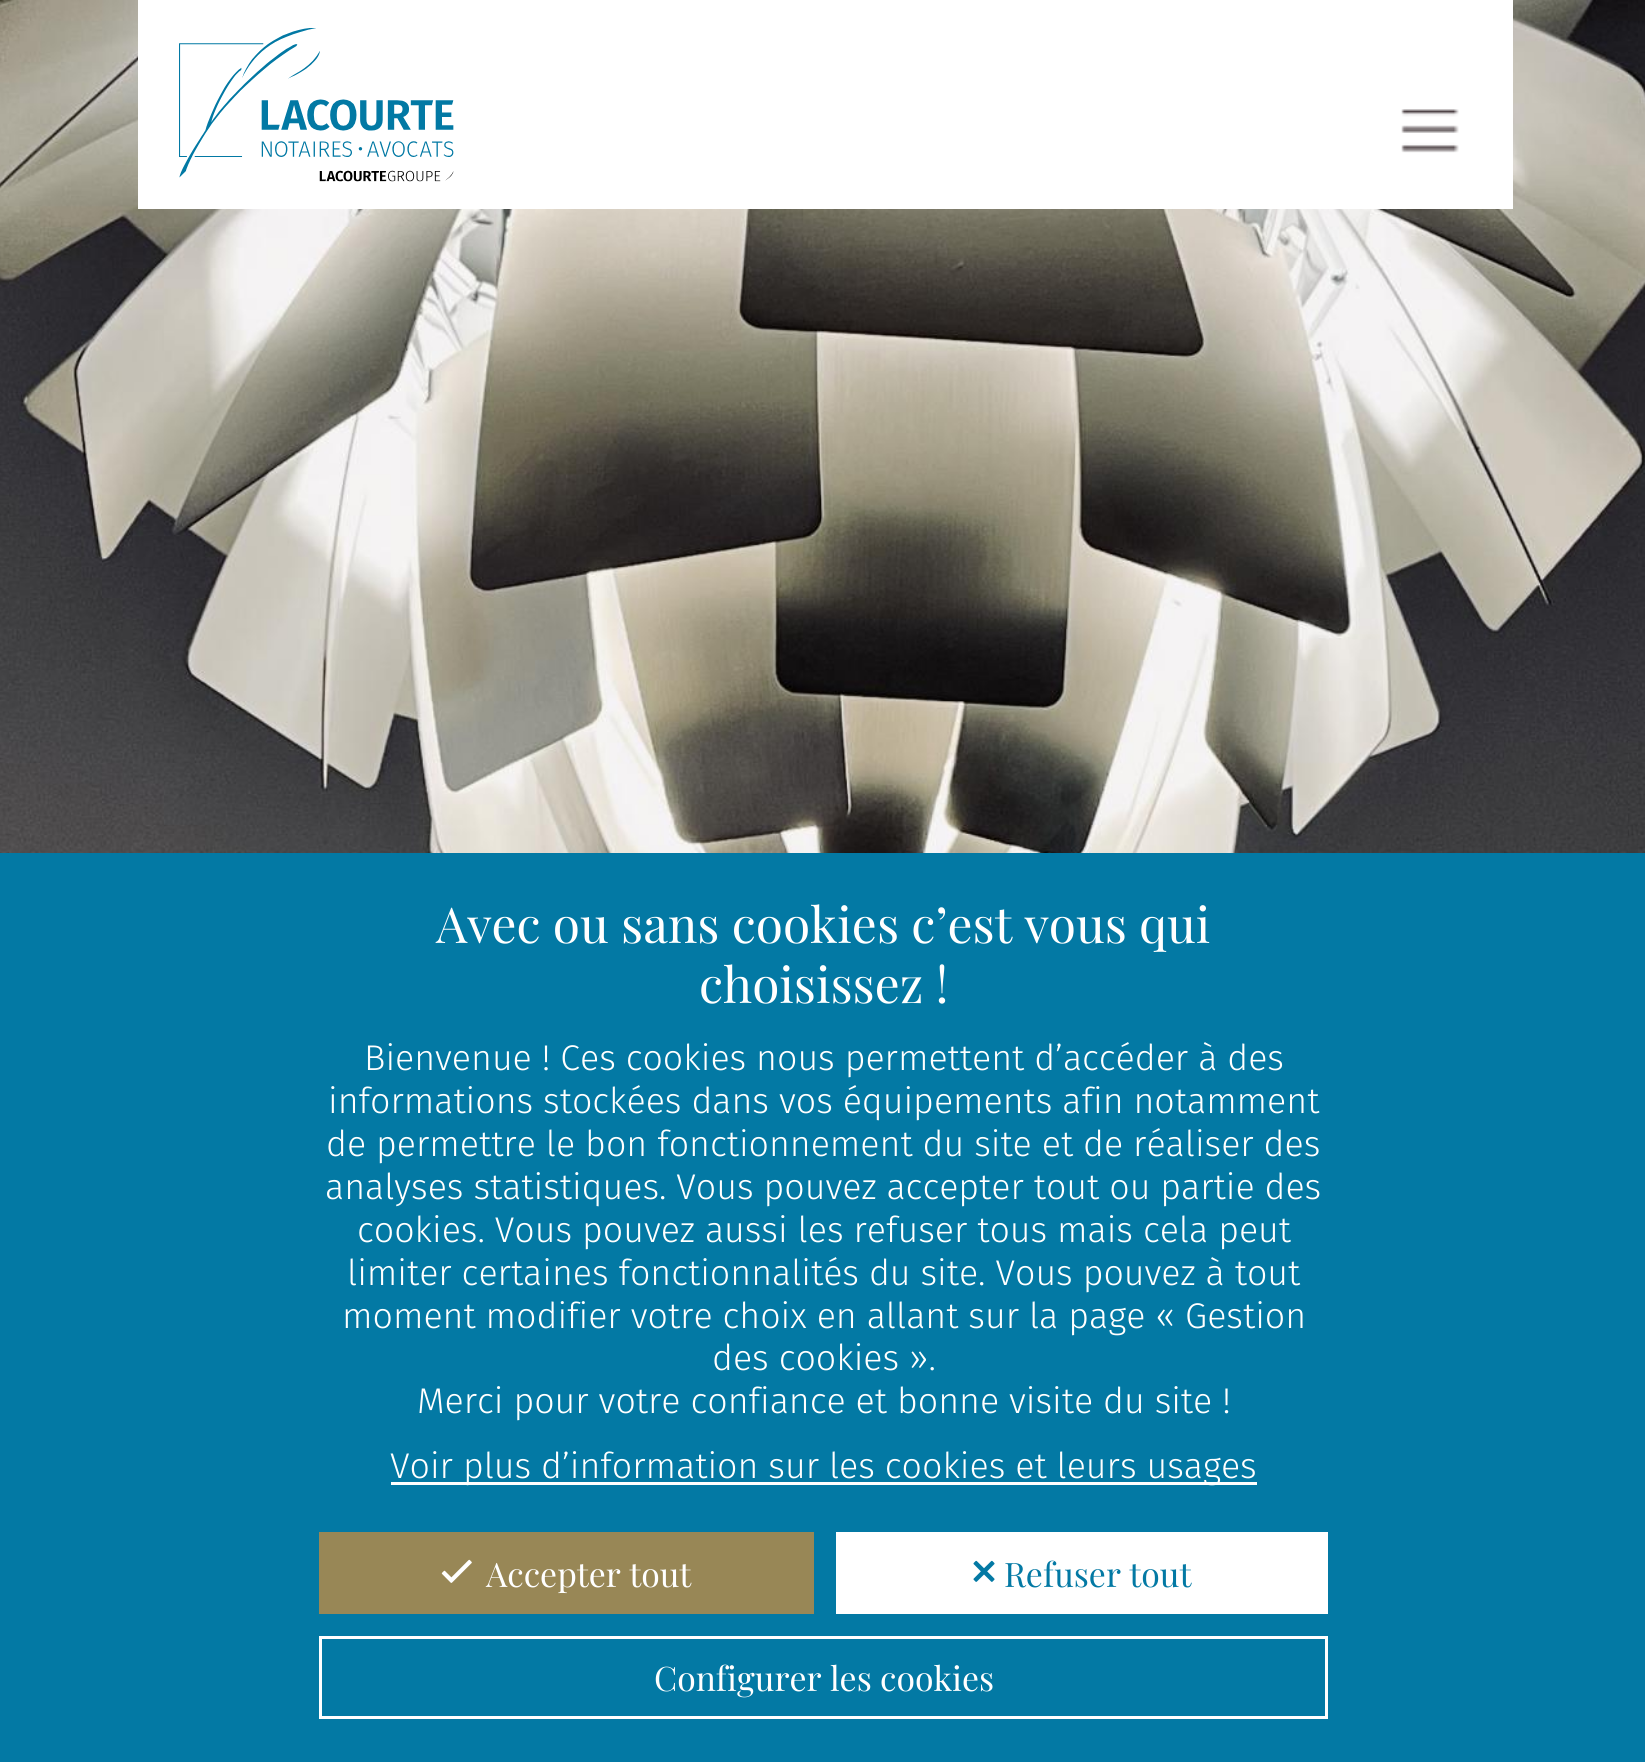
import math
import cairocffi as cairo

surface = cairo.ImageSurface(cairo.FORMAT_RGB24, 1645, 1762)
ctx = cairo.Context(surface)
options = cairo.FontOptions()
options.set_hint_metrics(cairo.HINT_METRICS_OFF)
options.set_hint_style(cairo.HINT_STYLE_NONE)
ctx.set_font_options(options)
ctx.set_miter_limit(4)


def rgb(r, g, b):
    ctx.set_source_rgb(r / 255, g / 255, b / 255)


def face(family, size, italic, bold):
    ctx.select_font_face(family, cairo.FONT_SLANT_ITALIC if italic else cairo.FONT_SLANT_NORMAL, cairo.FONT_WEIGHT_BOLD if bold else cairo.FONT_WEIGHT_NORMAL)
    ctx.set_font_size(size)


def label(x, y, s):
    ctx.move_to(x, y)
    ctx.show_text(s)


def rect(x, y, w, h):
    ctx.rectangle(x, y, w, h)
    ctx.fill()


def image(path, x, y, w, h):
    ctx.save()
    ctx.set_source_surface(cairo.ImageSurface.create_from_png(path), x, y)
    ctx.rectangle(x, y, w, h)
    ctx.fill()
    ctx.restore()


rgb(255, 255, 255)
ctx.paint()
image('image0.png', 0, 0, 1645, 853)
rgb(255, 255, 255)
rect(138, 0, 1375, 209)
image('image1.png', 179, 28, 275, 154)
image('image2.png', 1401, 109, 58, 44)
rgb(3, 121, 164)
rect(0, 853, 1645, 909)
face('Playfair Display', 49.5, 0, 0)
rgb(255, 255, 255)
label(436, 943, 'Avec ou sans cookies c’est vous qui')
label(699, 1003, 'choisissez !')
face('Fira Sans Light', 35.75, 0, 0)
label(364, 1070, 'Bienvenue ! Ces cookies nous permettent d’accéder à des')
label(328, 1113, 'informations stockées dans vos équipements afin notamment')
label(326, 1156, 'de permettre le bon fonctionnement du site et de réaliser des')
label(325, 1199, 'analyses statistiques. Vous pouvez accepter tout ou partie des')
label(357, 1242, 'cookies. Vous pouvez aussi les refuser tous mais cela peut')
label(347, 1285, 'limiter certaines fonctionnalités du site. Vous pouvez à tout')
label(342, 1328, 'moment modifier votre choix en allant sur la page « Gestion')
label(712, 1370, 'des cookies ».')
label(417, 1413, 'Merci pour votre confiance et bonne visite du site !')
rect(391, 1482, 866, 3)
label(390, 1478, 'Voir plus d’information sur les cookies et leurs usages')
rgb(152, 135, 86)
rect(319, 1532, 495, 82)
image('image3.png', 441, 1559, 31, 24)
face('Playfair Display', 33.75, 0, 0)
rgb(255, 255, 255)
label(486, 1587, 'Accepter tout')
rect(836, 1532, 492, 82)
image('image4.png', 973, 1560, 22, 22)
rgb(3, 121, 164)
label(1004, 1587, 'Refuser tout')
ctx.rectangle(320.5, 1637.5, 1006, 80)
rgb(255, 255, 255)
ctx.set_line_width(3)
ctx.stroke()
label(654, 1691, 'Configurer les cookies')
surface.write_to_png('render.png')
